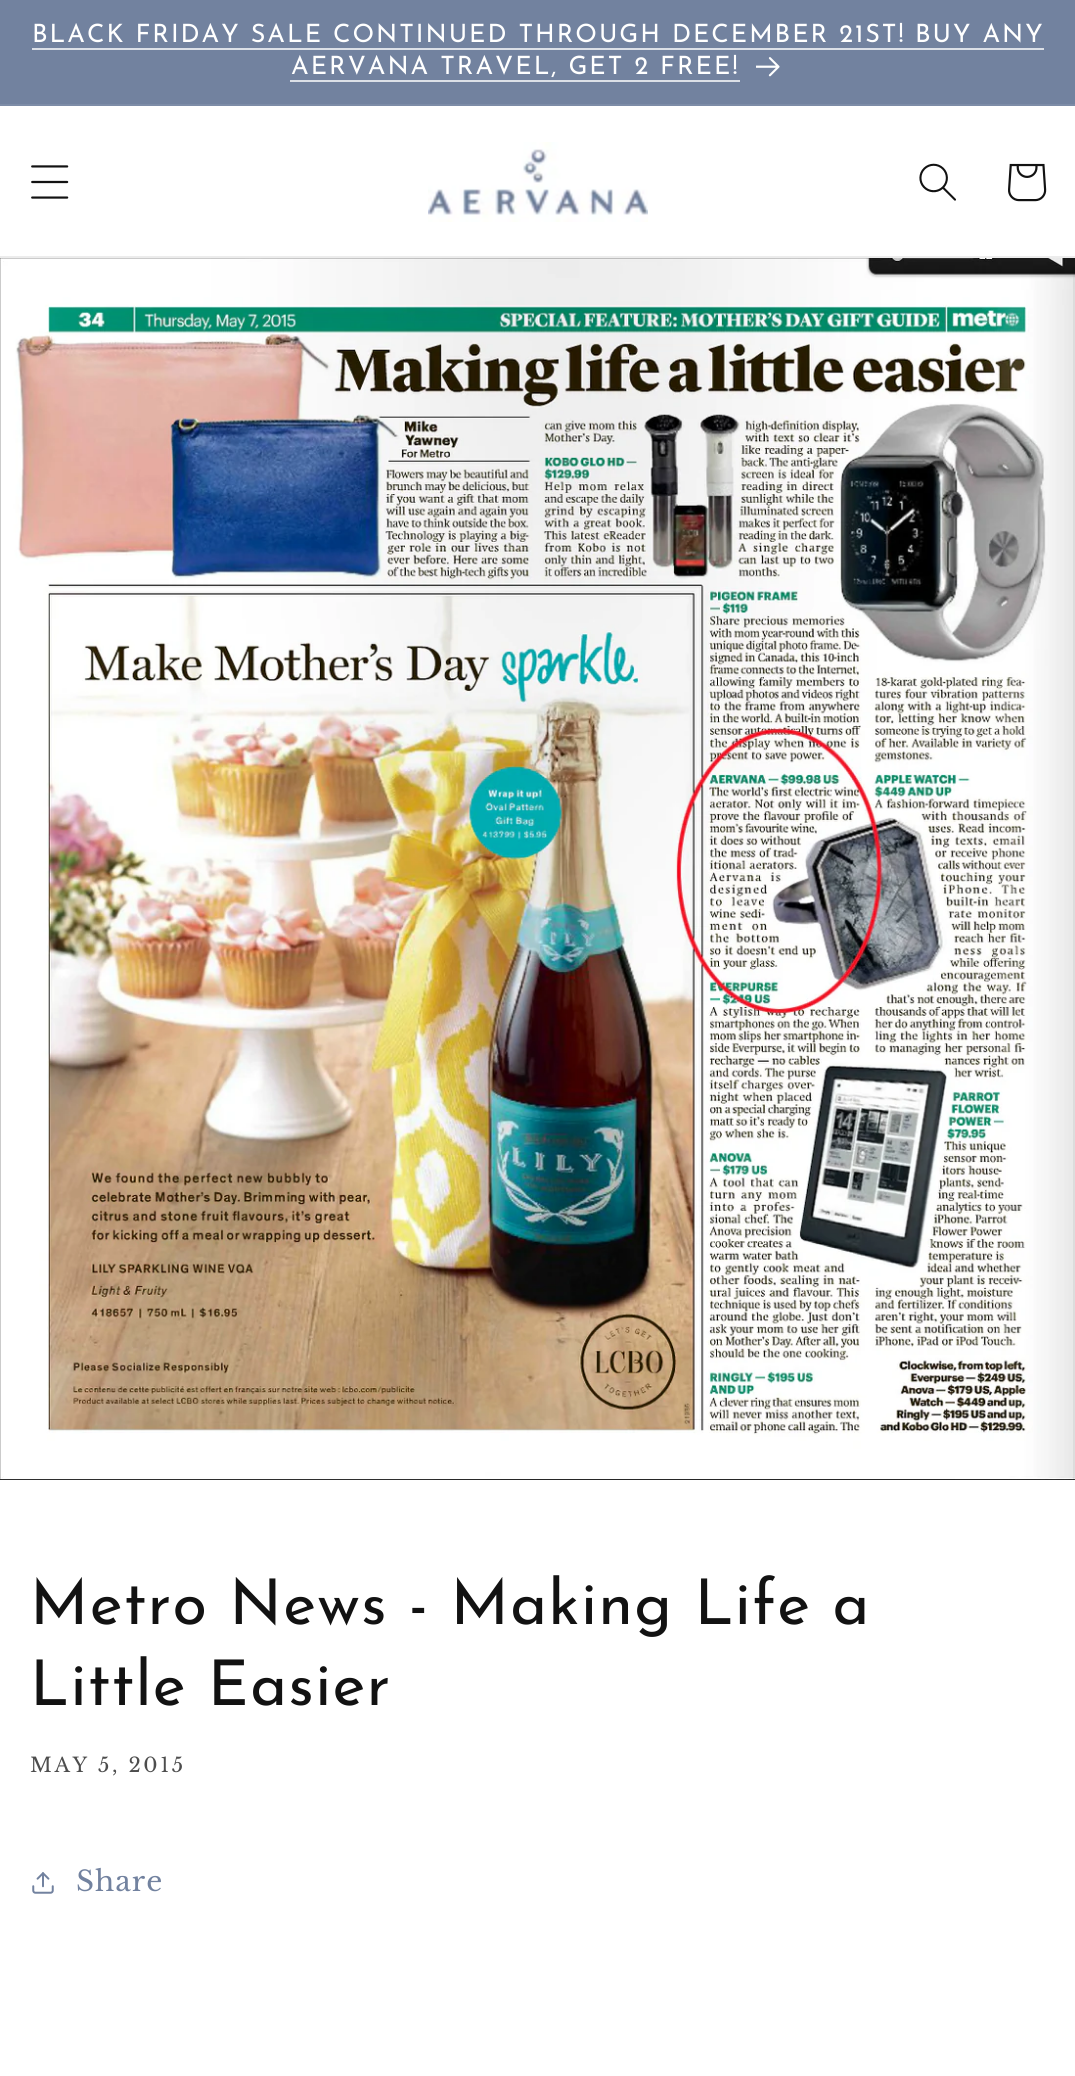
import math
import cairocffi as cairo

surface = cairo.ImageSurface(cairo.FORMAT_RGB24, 1075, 2076)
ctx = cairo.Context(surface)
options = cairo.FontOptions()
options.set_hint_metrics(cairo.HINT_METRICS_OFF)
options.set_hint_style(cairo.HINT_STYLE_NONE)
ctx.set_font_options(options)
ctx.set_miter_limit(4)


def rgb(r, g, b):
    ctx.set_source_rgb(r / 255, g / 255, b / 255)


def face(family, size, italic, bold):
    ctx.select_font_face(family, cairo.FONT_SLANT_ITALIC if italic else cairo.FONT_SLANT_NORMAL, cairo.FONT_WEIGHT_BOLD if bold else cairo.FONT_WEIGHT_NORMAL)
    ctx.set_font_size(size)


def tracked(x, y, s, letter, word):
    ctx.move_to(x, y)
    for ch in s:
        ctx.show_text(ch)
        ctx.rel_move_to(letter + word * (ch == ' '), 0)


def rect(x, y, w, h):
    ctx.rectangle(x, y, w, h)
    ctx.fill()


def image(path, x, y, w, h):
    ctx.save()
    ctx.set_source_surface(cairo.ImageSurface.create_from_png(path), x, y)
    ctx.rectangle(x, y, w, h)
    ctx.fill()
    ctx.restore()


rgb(255, 255, 255)
ctx.paint()
rgb(114, 130, 159)
rect(0, 0, 1075, 104)
rgb(125, 140, 167)
rect(0, 104, 1075, 2)
face('Josefin Sans', 25.2, 0, 0)
rgb(255, 255, 255)
tracked(32, 42, 'BLACK FRIDAY SALE CONTINUED THROUGH DECEMBER 21ST!', 2, 0)
tracked(915, 42, 'BUY ANY', 2, 0)
rgb(220, 224, 231)
rect(32, 48, 1012, 2)
rgb(255, 255, 255)
tracked(291, 74, 'AERVANA TRAVEL, GET 2 FREE!', 2, 0)
rgb(220, 224, 231)
rect(290, 80, 450, 2)
image('image0.png', 756, 57, 24, 20)
rgb(236, 236, 236)
rect(0, 256, 1075, 2)
image('image1.png', 31, 165, 38, 34)
image('image2.png', 428, 142, 220, 80)
image('image3.png', 919, 163, 37, 38)
image('image4.png', 1008, 163, 39, 39)
image('image5.png', 0, 258, 1075, 1222)
face('Josefin Sans', 63, 0, 0)
rgb(18, 18, 18)
tracked(30, 1624, 'Metro News - Making Life a', 1.25, 0)
tracked(30, 1705, 'Little Easier', 1.25, 0)
face('Libre Baskerville', 20, 0, 0)
rgb(77, 77, 77)
tracked(30, 1772, 'MAY 5, 2015', 2.6, 0)
image('image6.png', 32, 1872, 22, 22)
face('Libre Baskerville', 28, 0, 0)
rgb(114, 130, 159)
tracked(76, 1891, 'Share', 1, 0)
surface.write_to_png('render.png')
